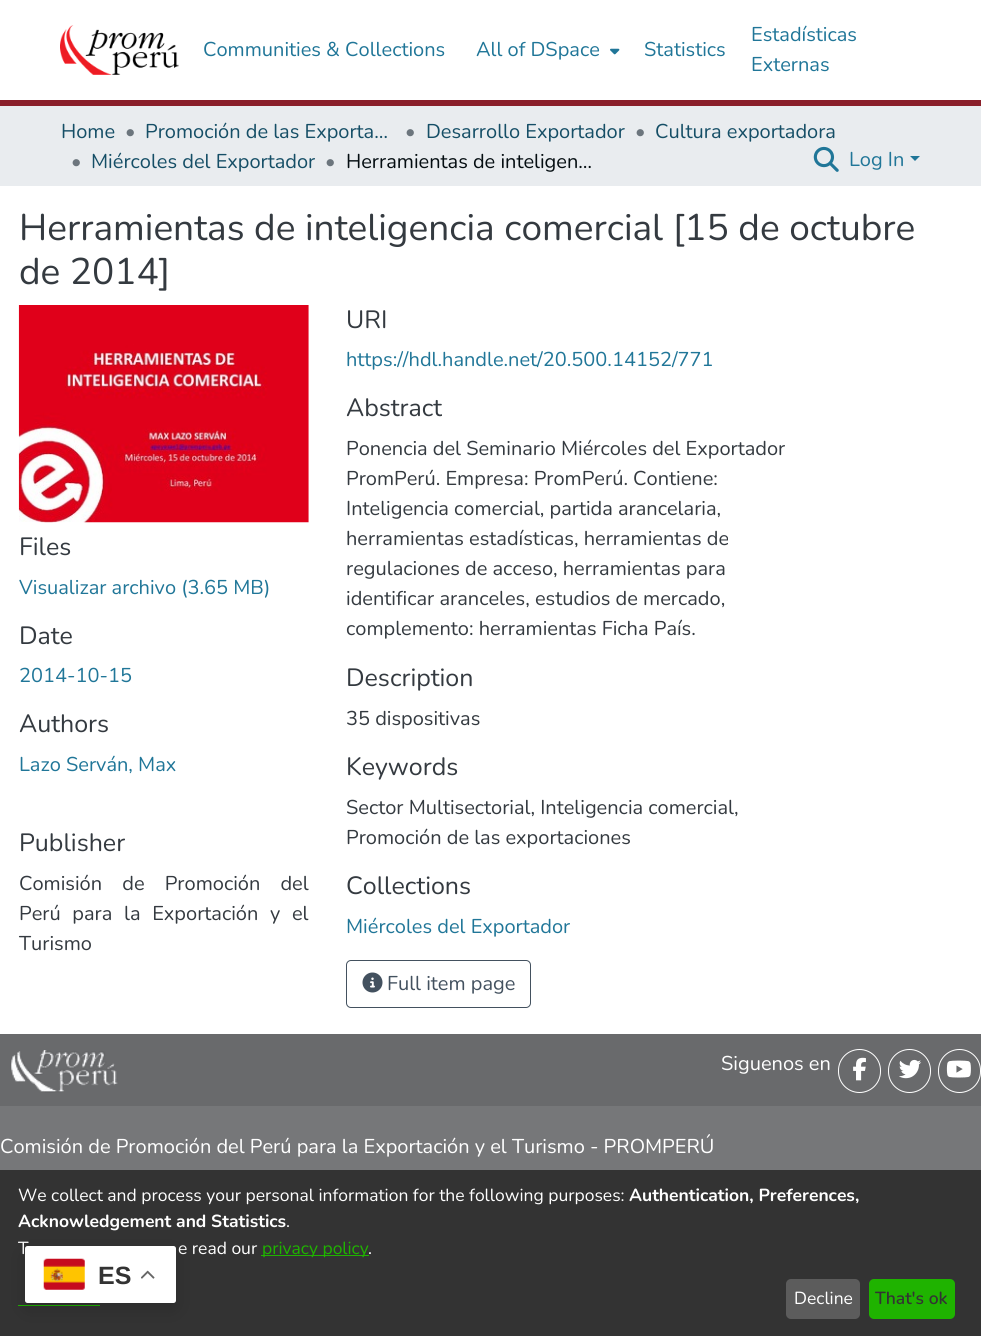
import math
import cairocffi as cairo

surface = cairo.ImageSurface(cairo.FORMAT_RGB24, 981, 1336)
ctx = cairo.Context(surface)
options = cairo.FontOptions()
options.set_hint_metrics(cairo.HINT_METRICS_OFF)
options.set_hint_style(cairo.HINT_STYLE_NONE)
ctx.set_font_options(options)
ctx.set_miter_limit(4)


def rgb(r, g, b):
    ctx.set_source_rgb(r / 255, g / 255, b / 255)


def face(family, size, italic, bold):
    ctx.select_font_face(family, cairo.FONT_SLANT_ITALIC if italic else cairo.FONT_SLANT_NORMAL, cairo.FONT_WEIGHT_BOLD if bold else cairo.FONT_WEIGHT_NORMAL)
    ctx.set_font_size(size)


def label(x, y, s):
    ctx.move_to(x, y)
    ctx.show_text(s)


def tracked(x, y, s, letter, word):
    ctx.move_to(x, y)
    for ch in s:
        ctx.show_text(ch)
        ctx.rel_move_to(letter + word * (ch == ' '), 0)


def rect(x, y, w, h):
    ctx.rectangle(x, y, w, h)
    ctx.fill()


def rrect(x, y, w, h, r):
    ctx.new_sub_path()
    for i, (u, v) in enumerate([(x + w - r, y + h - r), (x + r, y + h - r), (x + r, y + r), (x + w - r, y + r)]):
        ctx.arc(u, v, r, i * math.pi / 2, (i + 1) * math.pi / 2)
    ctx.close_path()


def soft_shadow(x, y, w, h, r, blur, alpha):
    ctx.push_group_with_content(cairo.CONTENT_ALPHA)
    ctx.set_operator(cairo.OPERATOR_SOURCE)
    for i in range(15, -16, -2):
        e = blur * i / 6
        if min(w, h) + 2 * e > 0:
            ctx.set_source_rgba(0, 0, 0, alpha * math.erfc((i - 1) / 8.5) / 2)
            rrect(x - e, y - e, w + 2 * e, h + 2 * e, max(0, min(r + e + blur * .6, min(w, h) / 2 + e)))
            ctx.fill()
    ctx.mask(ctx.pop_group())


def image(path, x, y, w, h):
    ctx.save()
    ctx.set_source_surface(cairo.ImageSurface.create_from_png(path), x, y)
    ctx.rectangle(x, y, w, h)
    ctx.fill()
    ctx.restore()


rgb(255, 255, 255)
ctx.paint()
rgb(138, 31, 42)
rect(0, 100, 981, 6)
image('image0.png', 60, 25, 119, 50)
face('Nunito', 20, 0, 0)
rgb(32, 118, 152)
label(203, 56, 'Communities & Collections')
label(476, 56, 'All of DSpace')
image('image1.png', 610, 48, 10, 7)
label(644, 56, 'Statistics')
label(751, 41, 'Estadísticas')
label(751, 71, 'Externas')
rgb(233, 236, 239)
rect(0, 106, 981, 80)
image('image2.png', 813, 146, 26, 26)
rgb(32, 118, 152)
label(849, 166, 'Log In')
ctx.new_path()
ctx.move_to(910, 156)
ctx.line_to(920, 156)
ctx.line_to(915, 161)
ctx.close_path()
ctx.fill()
rgb(21, 78, 102)
label(61, 138, 'Home')
rgb(108, 117, 125)
label(125, 138, '•')
rgb(21, 78, 102)
label(145, 138, 'Promoción de las Exporta…')
rgb(108, 117, 125)
label(405, 138, '•')
rgb(21, 78, 102)
label(426, 138, 'Desarrollo Exportador')
rgb(108, 117, 125)
label(635, 138, '•')
rgb(21, 78, 102)
label(655, 138, 'Cultura exportadora')
rgb(108, 117, 125)
label(71, 168, '•')
rgb(21, 78, 102)
label(91, 168, 'Miércoles del Exportador')
rgb(108, 117, 125)
label(325, 168, '•')
rgb(4, 13, 17)
label(346, 168, 'Herramientas de inteligen…')
face('Nunito', 37.05, 0, 0)
rgb(52, 58, 64)
label(19, 240, 'Herramientas de inteligencia comercial [15 de octubre')
label(19, 284, 'de 2014]')
image('image3.png', 18, 305, 291, 218)
face('Nunito', 25, 0, 0)
label(19, 555, 'Files')
face('Nunito', 20, 0, 0)
rgb(32, 118, 152)
label(19, 594, 'Visualizar archivo (3.65 MB)')
face('Nunito', 25, 0, 0)
rgb(52, 58, 64)
label(19, 644, 'Date')
face('Nunito', 20, 0, 0)
rgb(32, 118, 152)
label(19, 682, '2014-10-15')
face('Nunito', 25, 0, 0)
rgb(52, 58, 64)
label(19, 732, 'Authors')
face('Nunito', 20, 0, 0)
rgb(32, 118, 152)
label(19, 771, 'Lazo Serván, Max')
face('Nunito', 25, 0, 0)
rgb(52, 58, 64)
label(19, 851, 'Publisher')
face('Nunito', 20, 0, 0)
tracked(19, 890, 'Comisión de Promoción del', 0, 15)
tracked(19, 920, 'Perú para la Exportación y el', 0, 6.5)
label(19, 950, 'Turismo')
face('Nunito', 25, 0, 0)
label(346, 328, 'URI')
face('Nunito', 20, 0, 0)
rgb(32, 118, 152)
label(346, 366, 'https://hdl.handle.net/20.500.14152/771')
face('Nunito', 25, 0, 0)
rgb(52, 58, 64)
label(346, 416, 'Abstract')
face('Nunito', 20, 0, 0)
label(346, 455, 'Ponencia del Seminario Miércoles del Exportador')
label(346, 485, 'PromPerú. Empresa: PromPerú. Contiene:')
label(346, 515, 'Inteligencia comercial, partida arancelaria,')
label(346, 545, 'herramientas estadísticas, herramientas de')
label(346, 575, 'regulaciones de acceso, herramientas para')
label(346, 605, 'identificar aranceles, estudios de mercado,')
label(346, 635, 'complemento: herramientas Ficha País.')
face('Nunito', 25, 0, 0)
label(346, 686, 'Description')
face('Nunito', 20, 0, 0)
label(346, 725, '35 dispositivas')
face('Nunito', 25, 0, 0)
label(346, 775, 'Keywords')
face('Nunito', 20, 0, 0)
label(346, 814, 'Sector Multisectorial, Inteligencia comercial,')
label(346, 844, 'Promoción de las exportaciones')
face('Nunito', 25, 0, 0)
label(346, 894, 'Collections')
face('Nunito', 20, 0, 0)
rgb(32, 118, 152)
label(346, 933, 'Miércoles del Exportador')
rrect(346.5, 960.5, 184, 47, 4.5)
rgb(67, 81, 95)
ctx.set_line_width(1)
ctx.stroke()
image('image4.png', 362, 972, 21, 21)
label(387, 990, 'Full item page')
rgb(105, 106, 108)
rect(0, 1034, 981, 72)
image('image5.png', 10, 1050, 108, 43)
rgb(255, 255, 255)
label(721, 1070, 'Siguenos en')
rrect(838.5, 1049.5, 42, 43, 21)
ctx.stroke()
image('image6.png', 853, 1057, 13, 24)
rrect(888.5, 1049.5, 42, 43, 21)
ctx.stroke()
image('image7.png', 899, 1059, 23, 20)
rrect(938.5, 1049.5, 42, 43, 21)
ctx.stroke()
image('image8.png', 946, 1060, 25, 18)
rgb(118, 119, 121)
rect(0, 1106, 981, 64)
rgb(255, 255, 255)
label(0, 1153, 'Comisión de Promoción del Perú para la Exportación y el Turismo - PROMPERÚ')
rgb(51, 51, 51)
rect(0, 1170, 981, 166)
face('Nunito', 17.5, 0, 0)
rgb(255, 255, 255)
label(18, 1201, 'We collect and process your personal information for the following purposes:')
face('Nunito', 17.5, 0, 1)
label(629, 1201, 'Authentication, Preferences,')
label(18, 1227, 'Acknowledgement and Statistics')
face('Nunito', 17.5, 0, 0)
label(286, 1227, '.')
label(18, 1254, 'T')
label(178, 1254, 'e read our')
rgb(31, 179, 0)
rect(261, 1255, 108, 1)
label(262, 1254, 'privacy policy')
rgb(255, 255, 255)
label(368, 1254, '.')
rgb(92, 92, 92)
rrect(786, 1279, 74, 40, 5)
ctx.fill()
rgb(255, 255, 255)
label(794, 1304, 'Decline')
rgb(31, 179, 0)
rrect(869, 1279, 86, 40, 5)
ctx.fill()
face('Nunito SemiBold', 17.5, 0, 0)
rgb(51, 51, 51)
label(875, 1304, 'That\'s ok')
rgb(31, 179, 0)
rect(18, 1305, 82, 1)
rgb(0, 0, 0)
soft_shadow(25, 1253, 151, 56, 2.5, 9.5, 0.15)
rgb(255, 255, 255)
rrect(25, 1246, 151, 57, 2.5)
ctx.fill()
image('image9.png', 43, 1258, 42, 32)
face('Liberation Sans', 25, 0, 1)
rgb(51, 51, 51)
label(98, 1284, 'ES')
image('image10.png', 141, 1270, 14, 9)
surface.write_to_png('render.png')
